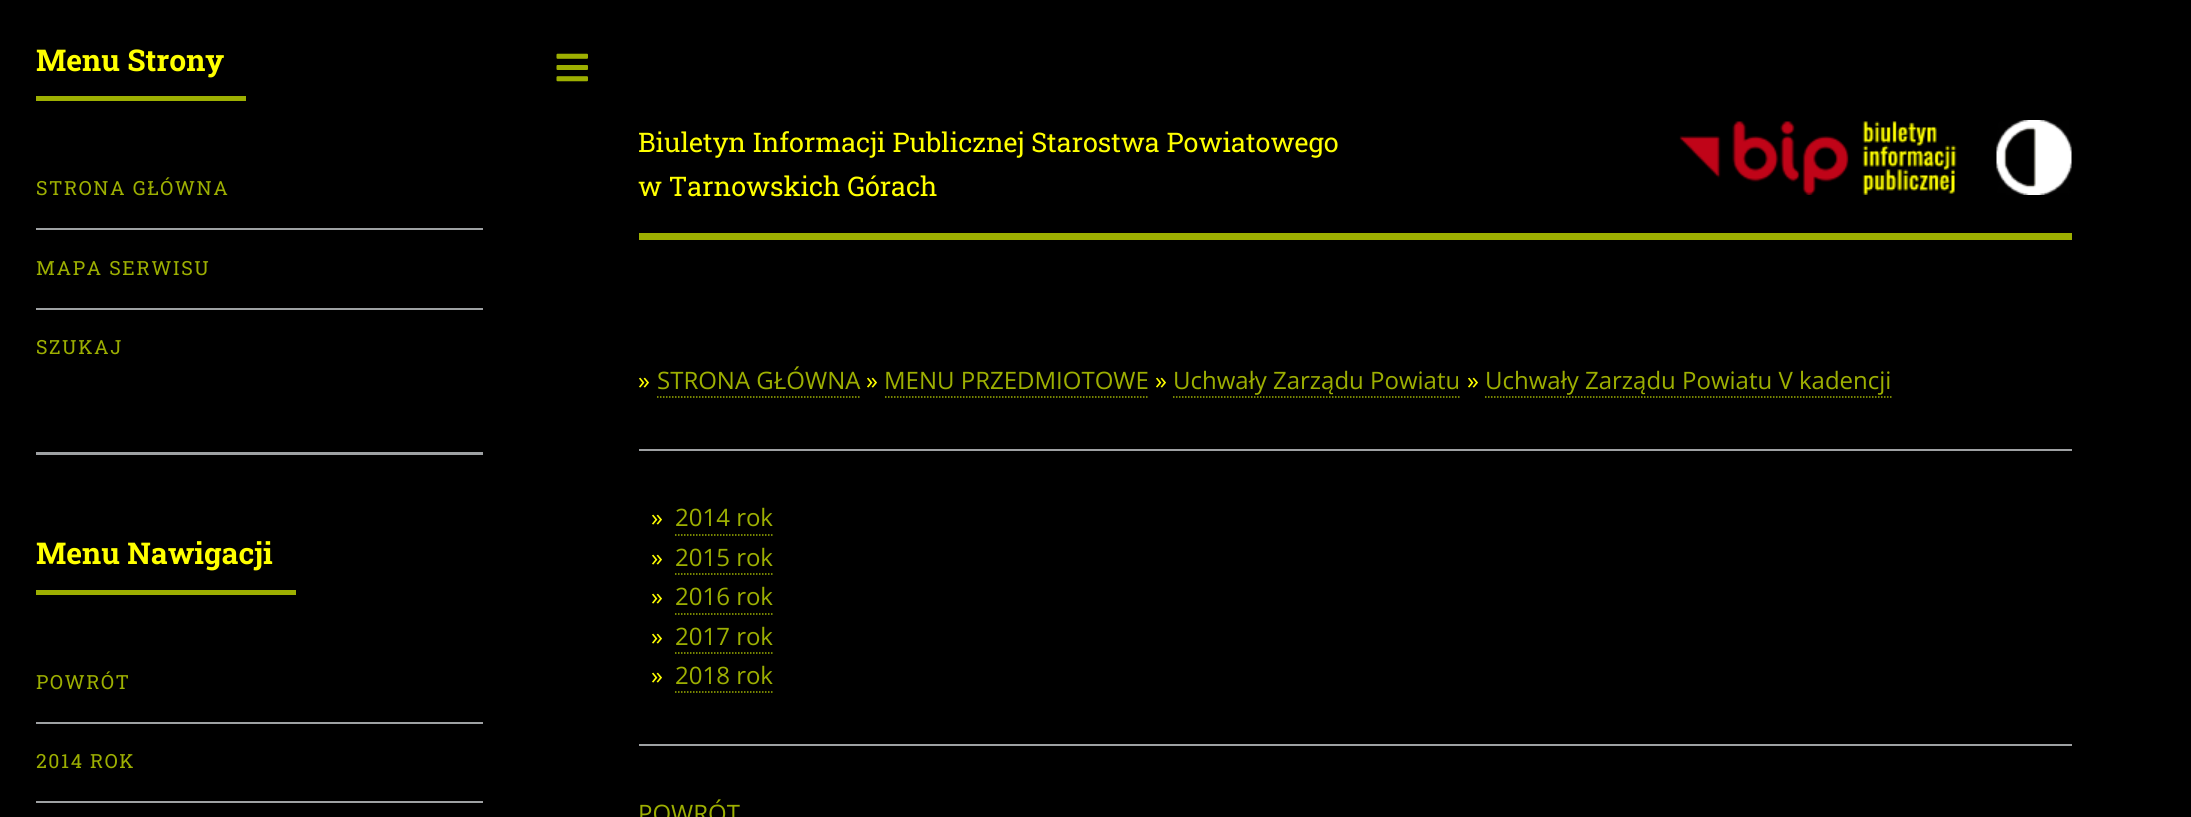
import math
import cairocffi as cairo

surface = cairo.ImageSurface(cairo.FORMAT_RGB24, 2191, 817)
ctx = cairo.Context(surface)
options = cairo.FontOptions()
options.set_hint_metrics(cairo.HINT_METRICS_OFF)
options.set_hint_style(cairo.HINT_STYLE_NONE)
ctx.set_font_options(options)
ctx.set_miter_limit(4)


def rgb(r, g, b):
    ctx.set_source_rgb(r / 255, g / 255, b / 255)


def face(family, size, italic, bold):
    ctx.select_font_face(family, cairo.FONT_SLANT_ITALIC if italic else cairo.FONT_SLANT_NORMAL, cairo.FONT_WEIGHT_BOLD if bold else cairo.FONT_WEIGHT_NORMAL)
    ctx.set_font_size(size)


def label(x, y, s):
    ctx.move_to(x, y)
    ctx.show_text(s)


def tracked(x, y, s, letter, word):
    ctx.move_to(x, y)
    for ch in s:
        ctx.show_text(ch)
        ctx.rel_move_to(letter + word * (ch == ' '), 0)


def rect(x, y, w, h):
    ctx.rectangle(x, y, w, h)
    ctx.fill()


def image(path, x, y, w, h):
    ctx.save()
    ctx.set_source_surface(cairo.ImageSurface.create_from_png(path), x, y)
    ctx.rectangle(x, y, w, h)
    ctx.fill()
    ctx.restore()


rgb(0, 0, 0)
ctx.paint()
rgb(158, 161, 163)
rect(36, 452, 447, 3)
rgb(157, 175, 1)
rect(36, 96, 210, 5)
face('Roboto Slab', 30, 0, 1)
rgb(255, 255, 0)
label(36, 71, 'Menu Strony')
face('Roboto Slab', 19.5, 0, 0)
rgb(157, 175, 1)
tracked(36, 195, 'STRONA GŁÓWNA', 1.6, 0)
rgb(158, 161, 163)
rect(36, 228, 447, 2)
rgb(157, 175, 1)
tracked(36, 275, 'MAPA SERWISU', 1.6, 0)
rgb(158, 161, 163)
rect(36, 308, 447, 2)
rgb(157, 175, 1)
tracked(36, 354, 'SZUKAJ', 1.6, 0)
rect(36, 590, 260, 5)
face('Roboto Slab', 30, 0, 1)
rgb(255, 255, 0)
label(36, 564, 'Menu Nawigacji')
face('Roboto Slab', 19.5, 0, 0)
rgb(157, 175, 1)
tracked(36, 689, 'POWRÓT', 1.6, 0)
rgb(158, 161, 163)
rect(36, 722, 447, 2)
rgb(157, 175, 1)
tracked(36, 768, '2014 ROK', 1.6, 0)
rgb(158, 161, 163)
rect(36, 801, 447, 2)
image('image0.png', 556, 53, 32, 29)
rgb(157, 175, 1)
rect(639, 233, 1433, 7)
face('Roboto Slab', 27, 0, 0)
rgb(255, 255, 0)
label(638, 152, 'Biuletyn Informacji Publicznej Starostwa Powiatowego')
label(638, 196, 'w Tarnowskich Górach')
image('image1.png', 1679, 121, 278, 74)
image('image2.png', 1996, 120, 76, 75)
face('Open Sans', 24, 0, 0)
label(638, 389, '»')
rgb(157, 175, 1)
label(657, 389, 'STRONA GŁÓWNA')
ctx.new_path()
ctx.move_to(657, 397)
ctx.line_to(859.5, 397)
ctx.set_line_width(1.5)
ctx.set_dash([1.5, 1.5])
ctx.stroke()
rgb(255, 255, 0)
label(866, 389, '»')
rgb(157, 175, 1)
label(884, 389, 'MENU PRZEDMIOTOWE')
ctx.new_path()
ctx.move_to(885, 397)
ctx.line_to(1149, 397)
ctx.stroke()
rgb(255, 255, 0)
label(1155, 389, '»')
rgb(157, 175, 1)
label(1173, 389, 'Uchwały Zarządu Powiatu')
ctx.new_path()
ctx.move_to(1173, 397)
ctx.line_to(1461, 397)
ctx.stroke()
rgb(255, 255, 0)
label(1467, 389, '»')
rgb(157, 175, 1)
label(1485, 389, 'Uchwały Zarządu Powiatu V kadencji')
ctx.new_path()
ctx.move_to(1485, 397)
ctx.line_to(1891.5, 397)
ctx.stroke()
rgb(158, 161, 163)
rect(639, 449, 1433, 2)
rgb(255, 255, 0)
label(651, 526, '»')
rgb(157, 175, 1)
label(675, 526, '2014 rok')
ctx.new_path()
ctx.move_to(675, 535)
ctx.line_to(772.5, 535)
ctx.stroke()
rgb(255, 255, 0)
label(651, 566, '»')
rgb(157, 175, 1)
label(675, 566, '2015 rok')
ctx.new_path()
ctx.move_to(675, 574)
ctx.line_to(772.5, 574)
ctx.stroke()
rgb(255, 255, 0)
label(651, 605, '»')
rgb(157, 175, 1)
label(675, 605, '2016 rok')
ctx.new_path()
ctx.move_to(675, 614)
ctx.line_to(772.5, 614)
ctx.stroke()
rgb(255, 255, 0)
label(651, 645, '»')
rgb(157, 175, 1)
label(675, 645, '2017 rok')
ctx.new_path()
ctx.move_to(675, 653)
ctx.line_to(772.5, 653)
ctx.stroke()
rgb(255, 255, 0)
label(651, 684, '»')
rgb(157, 175, 1)
label(675, 684, '2018 rok')
ctx.new_path()
ctx.move_to(675, 692)
ctx.line_to(772.5, 692)
ctx.stroke()
rgb(158, 161, 163)
rect(639, 744, 1433, 2)
rgb(157, 175, 1)
label(638, 822, 'POWRÓT')
surface.write_to_png('render.png')
